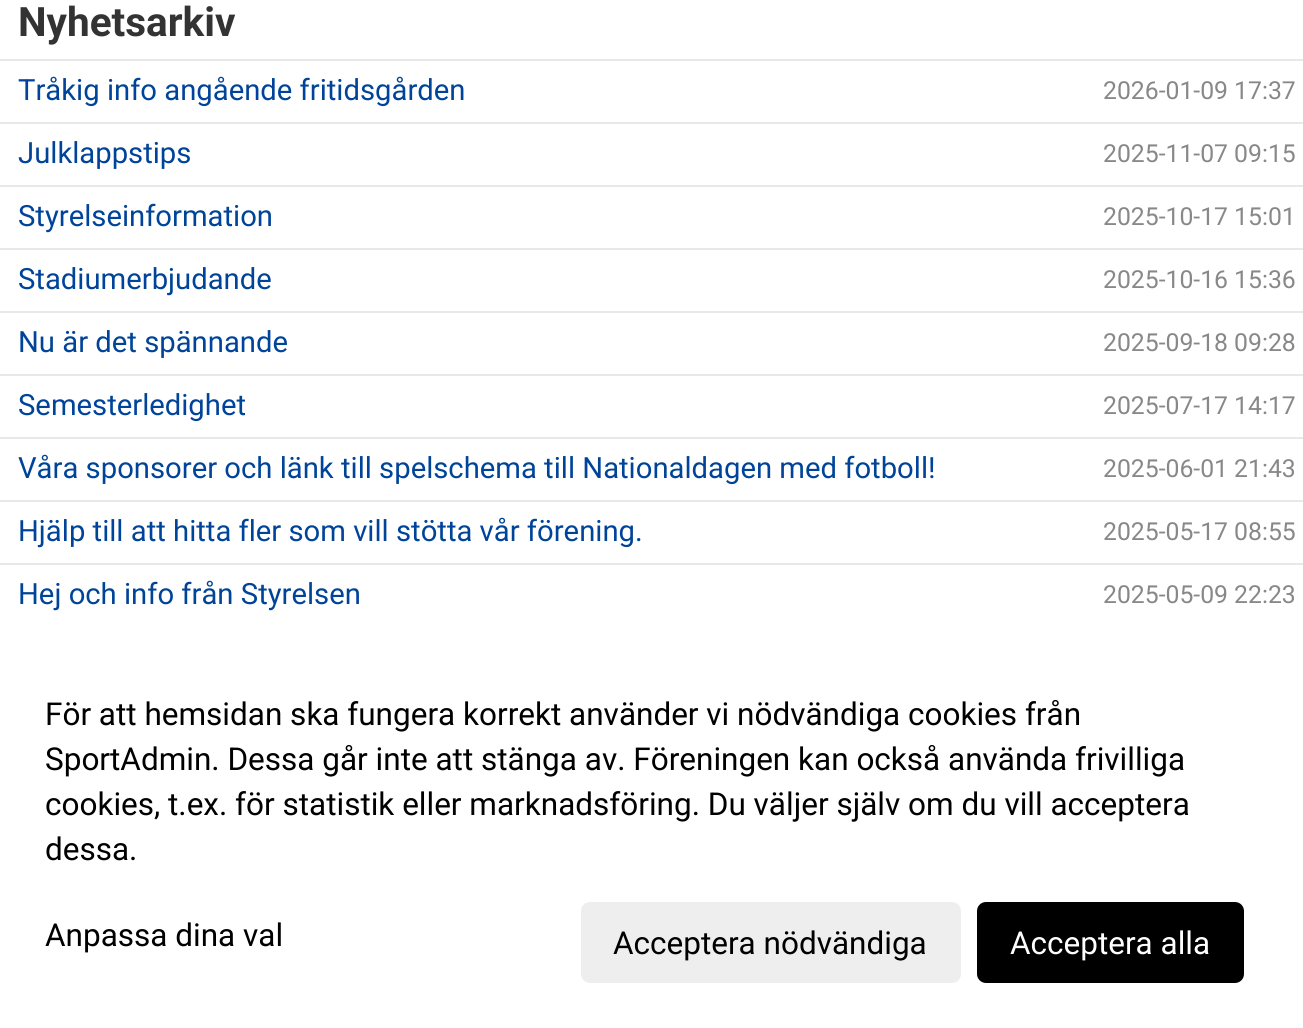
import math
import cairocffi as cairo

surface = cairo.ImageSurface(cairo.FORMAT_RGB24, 1303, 1028)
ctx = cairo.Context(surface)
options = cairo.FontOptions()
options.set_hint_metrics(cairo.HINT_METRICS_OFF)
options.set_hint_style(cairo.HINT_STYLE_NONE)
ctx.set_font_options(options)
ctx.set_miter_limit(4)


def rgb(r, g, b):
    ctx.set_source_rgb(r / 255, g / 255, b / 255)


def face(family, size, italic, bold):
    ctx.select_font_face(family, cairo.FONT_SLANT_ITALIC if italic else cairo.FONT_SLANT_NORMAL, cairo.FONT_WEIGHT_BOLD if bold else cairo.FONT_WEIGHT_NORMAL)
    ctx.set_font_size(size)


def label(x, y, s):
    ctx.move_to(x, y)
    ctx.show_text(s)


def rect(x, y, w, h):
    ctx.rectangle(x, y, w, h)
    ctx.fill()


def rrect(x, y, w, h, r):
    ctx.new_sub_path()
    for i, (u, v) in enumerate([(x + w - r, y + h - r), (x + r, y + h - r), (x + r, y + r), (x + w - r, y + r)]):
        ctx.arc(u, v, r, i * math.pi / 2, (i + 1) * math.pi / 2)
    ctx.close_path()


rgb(255, 255, 255)
ctx.paint()
face('Roboto', 40.5, 0, 1)
rgb(51, 51, 51)
label(18, 36, 'Nyhetsarkiv')
rgb(232, 232, 232)
rect(0, 59, 1303, 2)
face('Roboto', 29.25, 0, 0)
rgb(0, 68, 153)
label(18, 100, 'Tråkig info angående fritidsgården')
face('Roboto', 24.75, 0, 0)
rgb(136, 136, 136)
label(1103, 99, '2026-01-09 17:37')
rgb(232, 232, 232)
rect(0, 122, 1303, 2)
face('Roboto', 29.25, 0, 0)
rgb(0, 68, 153)
label(18, 163, 'Julklappstips')
face('Roboto', 24.75, 0, 0)
rgb(136, 136, 136)
label(1103, 162, '2025-11-07 09:15')
rgb(232, 232, 232)
rect(0, 185, 1303, 2)
face('Roboto', 29.25, 0, 0)
rgb(0, 68, 153)
label(18, 226, 'Styrelseinformation')
face('Roboto', 24.75, 0, 0)
rgb(136, 136, 136)
label(1103, 225, '2025-10-17 15:01')
rgb(232, 232, 232)
rect(0, 248, 1303, 2)
face('Roboto', 29.25, 0, 0)
rgb(0, 68, 153)
label(18, 289, 'Stadiumerbjudande')
face('Roboto', 24.75, 0, 0)
rgb(136, 136, 136)
label(1103, 288, '2025-10-16 15:36')
rgb(232, 232, 232)
rect(0, 311, 1303, 2)
face('Roboto', 29.25, 0, 0)
rgb(0, 68, 153)
label(18, 352, 'Nu är det spännande')
face('Roboto', 24.75, 0, 0)
rgb(136, 136, 136)
label(1103, 351, '2025-09-18 09:28')
rgb(232, 232, 232)
rect(0, 374, 1303, 2)
face('Roboto', 29.25, 0, 0)
rgb(0, 68, 153)
label(18, 415, 'Semesterledighet')
face('Roboto', 24.75, 0, 0)
rgb(136, 136, 136)
label(1103, 414, '2025-07-17 14:17')
rgb(232, 232, 232)
rect(0, 437, 1303, 2)
face('Roboto', 29.25, 0, 0)
rgb(0, 68, 153)
label(18, 478, 'Våra sponsorer och länk till spelschema till Nationaldagen med fotboll!')
face('Roboto', 24.75, 0, 0)
rgb(136, 136, 136)
label(1103, 477, '2025-06-01 21:43')
rgb(232, 232, 232)
rect(0, 500, 1303, 2)
face('Roboto', 29.25, 0, 0)
rgb(0, 68, 153)
label(18, 541, 'Hjälp till att hitta fler som vill stötta vår förening.')
face('Roboto', 24.75, 0, 0)
rgb(136, 136, 136)
label(1103, 540, '2025-05-17 08:55')
rgb(232, 232, 232)
rect(0, 563, 1303, 2)
face('Roboto', 29.25, 0, 0)
rgb(0, 68, 153)
label(18, 604, 'Hej och info från Styrelsen')
face('Roboto', 24.75, 0, 0)
rgb(136, 136, 136)
label(1103, 603, '2025-05-09 22:23')
face('Roboto', 31.5, 0, 0)
rgb(0, 0, 0)
label(45, 725, 'För att hemsidan ska fungera korrekt använder vi nödvändiga cookies från')
label(45, 770, 'SportAdmin. Dessa går inte att stänga av. Föreningen kan också använda frivilliga')
label(45, 815, 'cookies, t.ex. för statistik eller marknadsföring. Du väljer själv om du vill acceptera')
label(45, 860, 'dessa.')
label(45, 946, 'Anpassa dina val')
rgb(238, 238, 238)
rrect(581, 902, 380, 81, 9)
ctx.fill()
rgb(0, 0, 0)
label(613, 954, 'Acceptera nödvändiga')
rrect(977, 902, 267, 81, 9)
ctx.fill()
rgb(255, 255, 255)
label(1010, 954, 'Acceptera alla')
surface.write_to_png('render.png')
